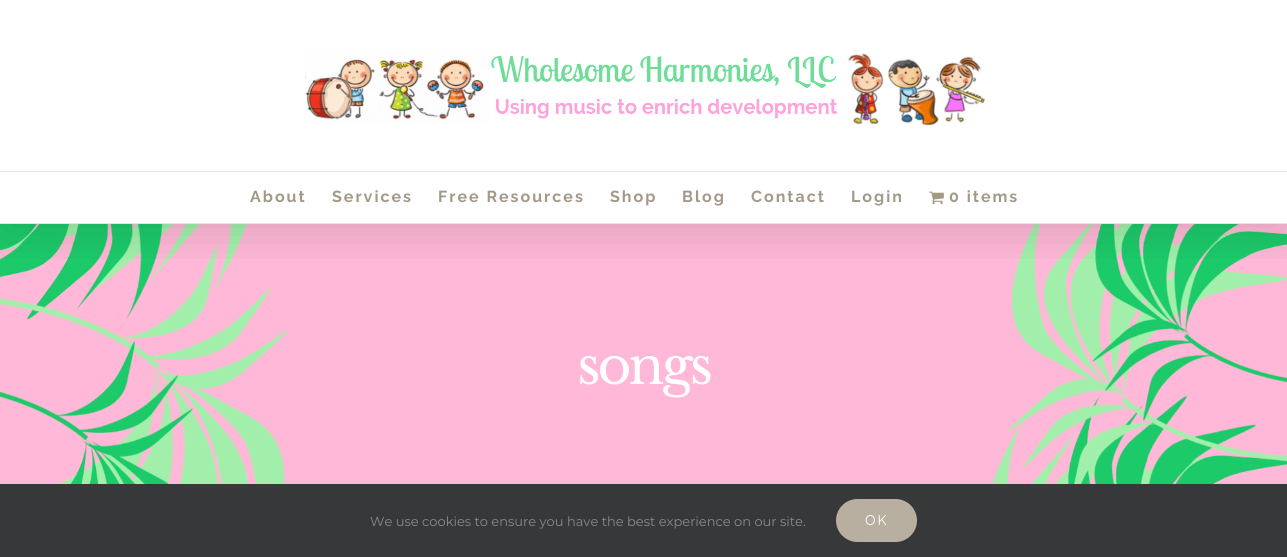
import math
import cairocffi as cairo

surface = cairo.ImageSurface(cairo.FORMAT_RGB24, 1287, 557)
ctx = cairo.Context(surface)
options = cairo.FontOptions()
options.set_hint_metrics(cairo.HINT_METRICS_OFF)
options.set_hint_style(cairo.HINT_STYLE_NONE)
ctx.set_font_options(options)
ctx.set_miter_limit(4)


def rgb(r, g, b):
    ctx.set_source_rgb(r / 255, g / 255, b / 255)


def face(family, size, italic, bold):
    ctx.select_font_face(family, cairo.FONT_SLANT_ITALIC if italic else cairo.FONT_SLANT_NORMAL, cairo.FONT_WEIGHT_BOLD if bold else cairo.FONT_WEIGHT_NORMAL)
    ctx.set_font_size(size)


def label(x, y, s):
    ctx.move_to(x, y)
    ctx.show_text(s)


def tracked(x, y, s, letter, word):
    ctx.move_to(x, y)
    for ch in s:
        ctx.show_text(ch)
        ctx.rel_move_to(letter + word * (ch == ' '), 0)


def rect(x, y, w, h):
    ctx.rectangle(x, y, w, h)
    ctx.fill()


def rrect(x, y, w, h, r):
    ctx.new_sub_path()
    for i, (u, v) in enumerate([(x + w - r, y + h - r), (x + r, y + h - r), (x + r, y + r), (x + w - r, y + r)]):
        ctx.arc(u, v, r, i * math.pi / 2, (i + 1) * math.pi / 2)
    ctx.close_path()


def soft_shadow(x, y, w, h, r, blur, alpha):
    ctx.push_group_with_content(cairo.CONTENT_ALPHA)
    ctx.set_operator(cairo.OPERATOR_SOURCE)
    for i in range(15, -16, -2):
        e = blur * i / 6
        if min(w, h) + 2 * e > 0:
            ctx.set_source_rgba(0, 0, 0, alpha * math.erfc((i - 1) / 8.5) / 2)
            rrect(x - e, y - e, w + 2 * e, h + 2 * e, max(0, min(r + e + blur * .6, min(w, h) / 2 + e)))
            ctx.fill()
    ctx.mask(ctx.pop_group())


def image(path, x, y, w, h):
    ctx.save()
    ctx.set_source_surface(cairo.ImageSurface.create_from_png(path), x, y)
    ctx.rectangle(x, y, w, h)
    ctx.fill()
    ctx.restore()


rgb(255, 255, 255)
ctx.paint()
image('image2.png', 0, 224, 1287, 260)
ctx.save()
ctx.rectangle(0, 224, 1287, 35)
ctx.clip()
rgb(0, 0, 0)
soft_shadow(2, 12, 1283, 220, 0, 25, 0.14)
ctx.restore()
rgb(229, 229, 229)
rect(0, 171, 1287, 1)
image('image0.png', 305, 53, 681, 73)
rect(0, 223, 1287, 1)
face('Raleway', 16, 0, 1)
rgb(164, 152, 135)
tracked(250, 202, 'About', 2, 0)
tracked(332, 202, 'Services', 2, 0)
tracked(438, 202, 'Free Resources', 2, 0)
tracked(610, 202, 'Shop', 2, 0)
tracked(682, 202, 'Blog', 2, 0)
tracked(751, 202, 'Contact', 2, 0)
tracked(851, 202, 'Login', 2, 0)
image('image1.png', 929, 191, 15, 14)
tracked(949, 202, '0 items', 2, 0)
face('Libre Baskerville', 52, 0, 0)
rgb(255, 255, 255)
tracked(577, 384, 'songs', -3, 0)
rgb(54, 56, 57)
rect(0, 484, 1287, 73)
face('Montserrat', 13, 0, 0)
rgb(140, 137, 137)
label(370, 526, 'We use cookies to ensure you have the best experience on our site.')
rgb(185, 175, 161)
rrect(836, 499, 81, 43, 21.5)
ctx.fill()
face('Raleway', 14, 0, 0)
rgb(255, 255, 255)
tracked(865, 525, 'OK', 2, 0)
surface.write_to_png('render.png')
